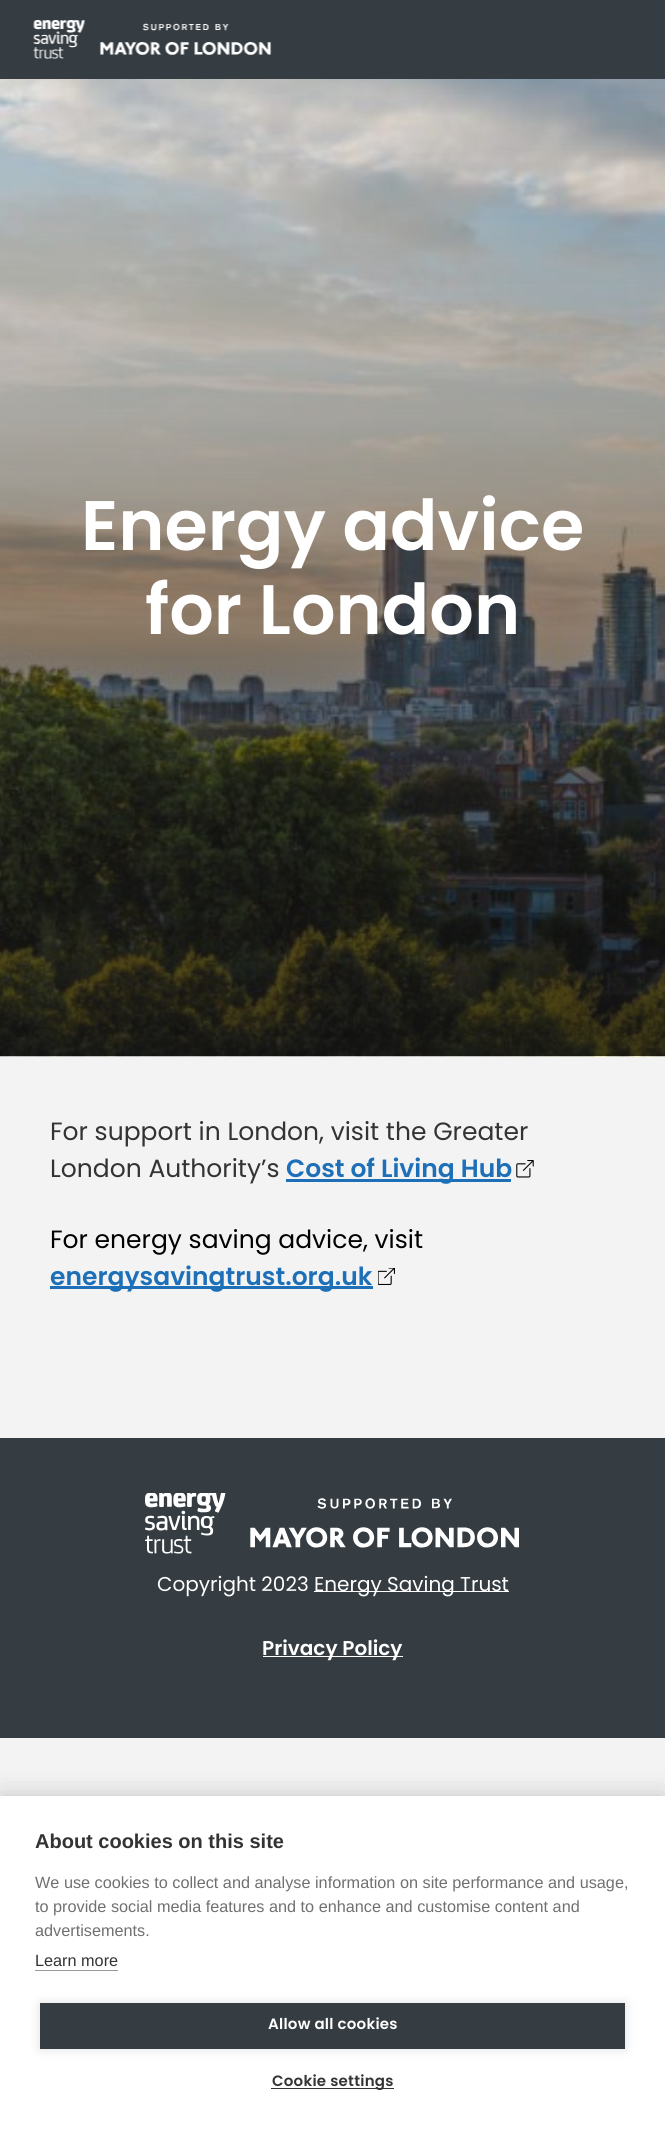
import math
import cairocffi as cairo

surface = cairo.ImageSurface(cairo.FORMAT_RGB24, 665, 2140)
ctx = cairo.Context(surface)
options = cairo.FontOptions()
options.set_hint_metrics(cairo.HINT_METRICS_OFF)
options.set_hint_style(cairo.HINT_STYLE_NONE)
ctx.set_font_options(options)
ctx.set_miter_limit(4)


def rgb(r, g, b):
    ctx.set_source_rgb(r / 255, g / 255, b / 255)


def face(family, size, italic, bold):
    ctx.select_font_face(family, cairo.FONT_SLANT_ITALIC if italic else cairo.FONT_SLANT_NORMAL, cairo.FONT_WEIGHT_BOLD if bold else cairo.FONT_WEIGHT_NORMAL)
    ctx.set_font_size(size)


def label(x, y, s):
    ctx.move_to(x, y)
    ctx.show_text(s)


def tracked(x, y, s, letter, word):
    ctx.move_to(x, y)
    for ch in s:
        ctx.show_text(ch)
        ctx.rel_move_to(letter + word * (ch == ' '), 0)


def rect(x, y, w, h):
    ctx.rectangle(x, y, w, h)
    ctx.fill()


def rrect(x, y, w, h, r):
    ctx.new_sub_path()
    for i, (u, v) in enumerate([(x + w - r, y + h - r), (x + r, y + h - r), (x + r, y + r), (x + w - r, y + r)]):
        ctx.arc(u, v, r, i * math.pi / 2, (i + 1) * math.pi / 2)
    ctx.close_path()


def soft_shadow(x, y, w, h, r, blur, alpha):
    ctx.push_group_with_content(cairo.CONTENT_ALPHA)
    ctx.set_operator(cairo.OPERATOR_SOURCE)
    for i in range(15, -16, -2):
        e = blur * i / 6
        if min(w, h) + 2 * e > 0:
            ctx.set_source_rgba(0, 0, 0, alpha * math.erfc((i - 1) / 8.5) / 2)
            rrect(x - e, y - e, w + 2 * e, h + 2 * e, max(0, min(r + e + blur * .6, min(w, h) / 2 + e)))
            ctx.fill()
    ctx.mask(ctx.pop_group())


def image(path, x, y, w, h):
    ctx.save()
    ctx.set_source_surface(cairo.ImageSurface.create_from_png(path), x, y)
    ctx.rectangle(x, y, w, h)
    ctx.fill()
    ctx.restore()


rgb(243, 243, 243)
ctx.paint()
rgb(53, 61, 66)
rect(0, 0, 665, 79)
image('image0.png', 33, 20, 239, 39)
image('image1.png', 0, 79, 665, 978)
face('Poppins SemiBold', 70, 0, 0)
rgb(255, 255, 255)
label(81, 550, 'Energy advice')
label(145, 634, 'for London')
face('Poppins', 25, 0, 0)
rgb(51, 51, 51)
label(50, 1140, 'For support in London, visit the Greater')
label(50, 1177, 'London Authority’s')
rgb(29, 112, 184)
rect(286, 1179, 225, 3)
face('Poppins SemiBold', 25, 0, 0)
label(286, 1177, 'Cost of Living Hub')
image('image2.png', 516, 1160, 18, 18)
face('Poppins', 25, 0, 0)
rgb(0, 0, 0)
label(50, 1248, 'For energy saving advice, visit')
rgb(29, 112, 184)
rect(50, 1286, 323, 3)
face('Poppins SemiBold', 25, 0, 0)
label(50, 1285, 'energysavingtrust.org.uk')
image('image3.png', 378, 1268, 17, 17)
rgb(53, 61, 66)
rect(0, 1438, 665, 300)
image('image4.png', 145, 1493, 374, 61)
face('Poppins', 20, 0, 0)
rgb(255, 255, 255)
label(157, 1591, 'Copyright 2023')
rect(314, 1591, 195, 1)
label(314, 1591, 'Energy Saving Trust')
rect(263, 1656, 140, 1)
face('Poppins SemiBold', 20, 0, 0)
label(262, 1655, 'Privacy Policy')
rgb(0, 0, 0)
soft_shadow(0, 1796, 665, 344, 0, 12.5, 0.2)
rgb(255, 255, 255)
rect(0, 1796, 665, 344)
face('Liberation Sans', 20, 0, 1)
rgb(51, 51, 51)
label(35, 1848, 'About cookies on this site')
face('Liberation Sans', 16.25, 0, 0)
rgb(112, 112, 112)
label(35, 1888, 'We use cookies to collect and analyse information on site performance and usage,')
label(35, 1912, 'to provide social media features and to enhance and customise content and')
label(35, 1936, 'advertisements.')
rgb(51, 51, 51)
label(35, 1966, 'Learn more')
rgb(153, 153, 153)
rect(35, 1970, 83, 1)
rgb(0, 0, 0)
soft_shadow(40, 2003, 585, 46, 0, 6, 0.12)
rgb(53, 61, 66)
rect(40, 2003, 585, 46)
face('Poppins SemiBold', 15, 0, 0)
rgb(255, 255, 255)
tracked(268, 2029, 'Allow all cookies', 0.25, 0)
rgb(51, 51, 51)
rect(271, 2088, 123, 1)
tracked(272, 2086, 'Cookie settings', 0.25, 0)
surface.write_to_png('render.png')
